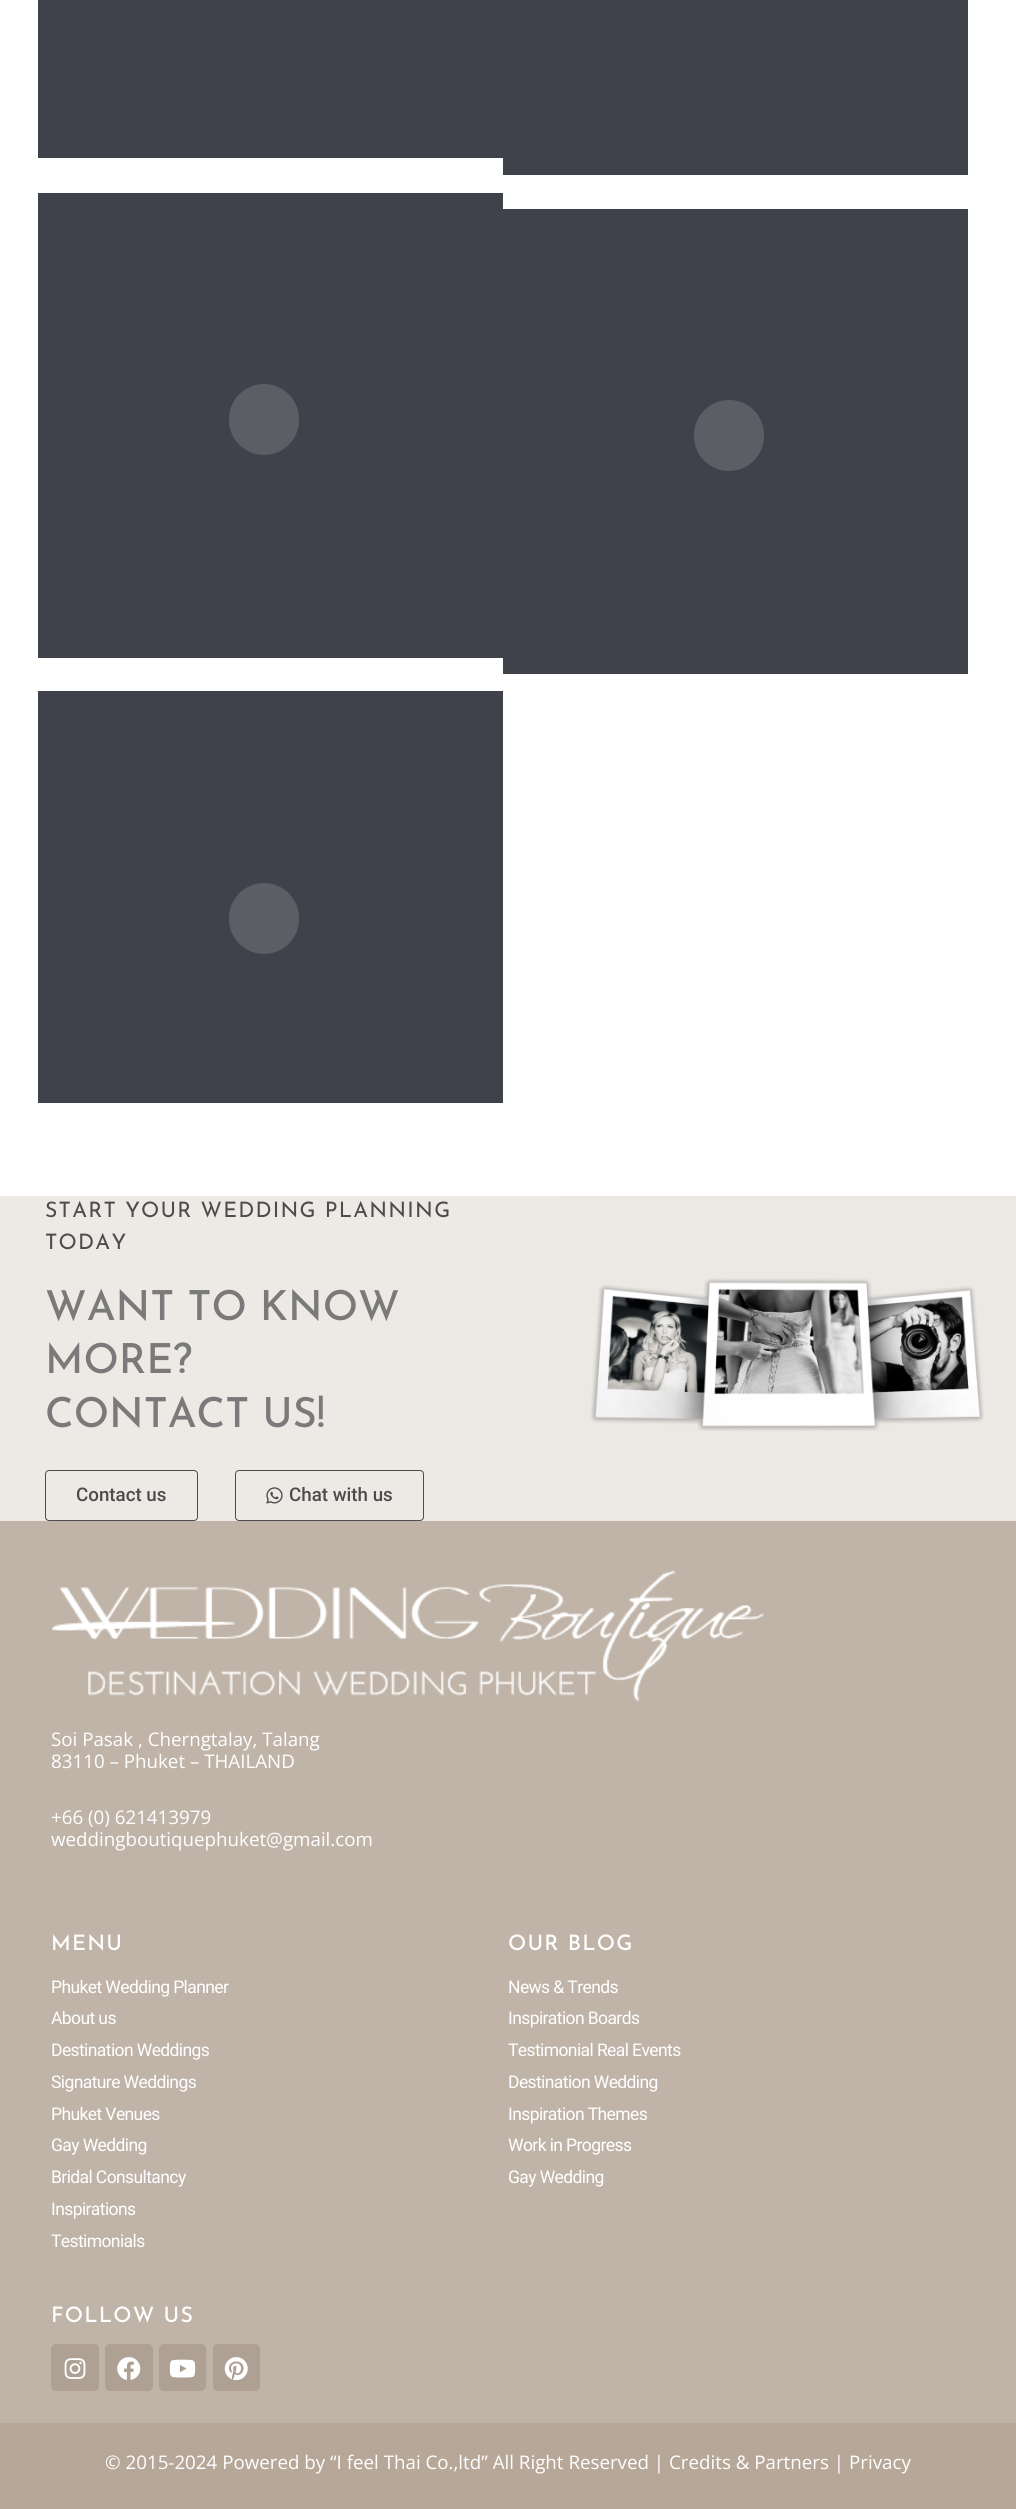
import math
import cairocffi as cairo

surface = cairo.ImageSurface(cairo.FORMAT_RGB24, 1016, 2509)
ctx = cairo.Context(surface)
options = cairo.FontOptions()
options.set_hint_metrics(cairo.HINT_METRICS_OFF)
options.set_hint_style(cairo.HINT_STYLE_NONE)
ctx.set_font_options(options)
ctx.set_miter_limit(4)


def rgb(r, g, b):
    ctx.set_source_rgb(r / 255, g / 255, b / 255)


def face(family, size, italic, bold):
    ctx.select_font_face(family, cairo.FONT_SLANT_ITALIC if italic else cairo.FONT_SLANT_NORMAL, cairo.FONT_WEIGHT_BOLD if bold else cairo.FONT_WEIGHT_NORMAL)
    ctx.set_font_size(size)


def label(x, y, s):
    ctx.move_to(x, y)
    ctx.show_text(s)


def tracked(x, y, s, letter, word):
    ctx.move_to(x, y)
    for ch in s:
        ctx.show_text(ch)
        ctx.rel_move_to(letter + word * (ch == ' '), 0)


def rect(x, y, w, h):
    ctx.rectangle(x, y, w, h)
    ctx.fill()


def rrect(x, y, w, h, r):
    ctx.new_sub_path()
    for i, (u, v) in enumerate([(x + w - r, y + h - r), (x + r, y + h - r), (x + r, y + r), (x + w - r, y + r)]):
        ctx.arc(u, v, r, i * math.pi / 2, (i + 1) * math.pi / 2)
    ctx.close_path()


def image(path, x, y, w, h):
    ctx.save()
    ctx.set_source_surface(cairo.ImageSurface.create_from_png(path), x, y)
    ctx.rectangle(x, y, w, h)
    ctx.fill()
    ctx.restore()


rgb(255, 255, 255)
ctx.paint()
rgb(63, 66, 74)
rect(38, 0, 465, 158)
rect(503, 0, 465, 175)
rect(38, 193, 465, 465)
rgb(92, 94, 101)
rrect(229, 384, 70, 71, 35)
ctx.fill()
rgb(63, 66, 74)
rect(503, 209, 465, 465)
rgb(92, 94, 101)
rrect(694, 400, 70, 71, 35)
ctx.fill()
rgb(63, 66, 74)
rect(38, 691, 465, 412)
rgb(92, 94, 101)
rrect(229, 883, 70, 71, 35)
ctx.fill()
rgb(237, 233, 229)
rect(0, 1196, 559, 325)
face('Josefin Sans', 21.25, 0, 0)
rgb(76, 76, 76)
tracked(45, 1217, 'START YOUR WEDDING PLANNING', 1.25, 0)
tracked(45, 1249, 'TODAY', 1.25, 0)
face('Josefin Sans Medium', 41.25, 0, 0)
rgb(122, 122, 122)
label(45, 1320, 'WANT TO KNOW')
label(45, 1373, 'MORE?')
label(45, 1427, 'CONTACT US!')
rrect(45.5, 1470.5, 152, 50, 3.5)
rgb(76, 76, 76)
ctx.set_line_width(1)
ctx.stroke()
face('Roboto Medium', 18.75, 0, 0)
label(76, 1501, 'Contact us')
rrect(235.5, 1470.5, 188, 50, 3.5)
ctx.stroke()
image('image0.png', 266, 1487, 17, 17)
label(289, 1501, 'Chat with us')
rgb(236, 233, 229)
rect(559, 1196, 457, 325)
image('image1.png', 590, 1278, 394, 153)
rgb(192, 180, 168)
rect(0, 1521, 1016, 902)
image('image2.png', 51, 1570, 713, 132)
face('Open Sans', 18.75, 0, 0)
rgb(255, 255, 255)
label(51, 1746, 'Soi Pasak , Cherngtalay, Talang')
label(51, 1768, '83110 – Phuket – THAILAND')
label(51, 1824, '+66 (0) 621413979')
label(51, 1846, 'weddingboutiquephuket@gmail.com')
face('Josefin Sans Medium', 21.25, 0, 0)
tracked(51, 1950, 'MENU', 1.25, 0)
face('Roboto', 17.5, 0, 0)
tracked(51, 1993, 'Phuket Wedding Planner', -0.6, 0)
tracked(51, 2024, 'About us', -0.6, 0)
tracked(51, 2056, 'Destination Weddings', -0.6, 0)
tracked(51, 2088, 'Signature Weddings', -0.6, 0)
tracked(51, 2120, 'Phuket Venues', -0.6, 0)
tracked(51, 2151, 'Gay Wedding', -0.6, 0)
tracked(51, 2183, 'Bridal Consultancy', -0.6, 0)
tracked(51, 2215, 'Inspirations', -0.6, 0)
tracked(51, 2247, 'Testimonials', -0.6, 0)
face('Josefin Sans Medium', 21.25, 0, 0)
tracked(508, 1950, 'OUR BLOG', 1.25, 0)
face('Roboto', 17.5, 0, 0)
tracked(508, 1993, 'News & Trends', -0.6, 0)
tracked(508, 2024, 'Inspiration Boards', -0.6, 0)
tracked(508, 2056, 'Testimonial Real Events', -0.6, 0)
tracked(508, 2088, 'Destination Wedding', -0.6, 0)
tracked(508, 2120, 'Inspiration Themes', -0.6, 0)
tracked(508, 2151, 'Work in Progress', -0.6, 0)
tracked(508, 2183, 'Gay Wedding', -0.6, 0)
face('Josefin Sans Medium', 21.25, 0, 0)
tracked(51, 2322, 'FOLLOW US', 1.25, 0)
rgb(174, 161, 148)
rrect(51, 2344, 48, 47, 5)
ctx.fill()
image('image3.png', 64, 2358, 22, 21)
rrect(105, 2344, 48, 47, 5)
ctx.fill()
image('image4.png', 117, 2357, 24, 23)
rrect(159, 2344, 47, 47, 5)
ctx.fill()
image('image5.png', 169, 2359, 27, 19)
rrect(213, 2344, 47, 47, 5)
ctx.fill()
image('image6.png', 224, 2357, 24, 24)
rgb(182, 167, 153)
rect(0, 2423, 1016, 86)
face('Open Sans', 18.75, 0, 0)
rgb(255, 255, 255)
label(105, 2469, '© 2015-2024 Powered by “I feel Thai Co.,ltd” All Right Reserved | Credits & Partners | Privacy')
surface.write_to_png('render.png')
